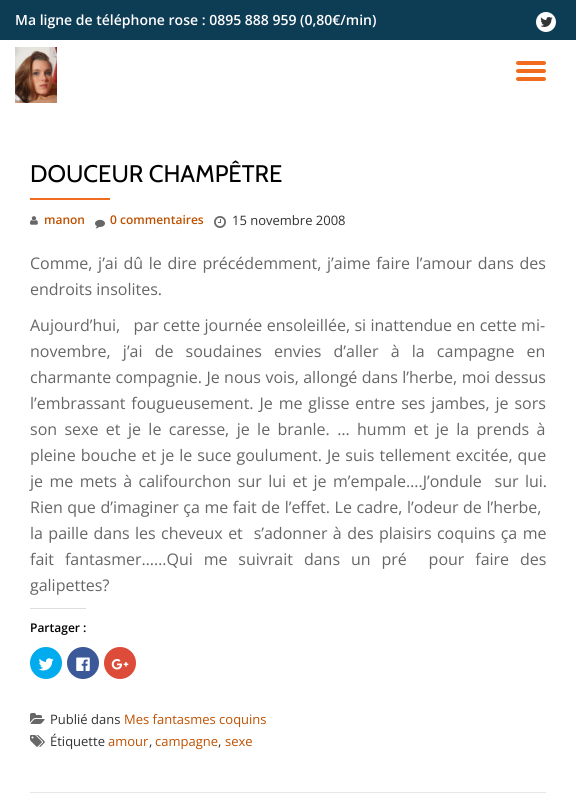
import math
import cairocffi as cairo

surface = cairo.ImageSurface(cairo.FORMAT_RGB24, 576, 797)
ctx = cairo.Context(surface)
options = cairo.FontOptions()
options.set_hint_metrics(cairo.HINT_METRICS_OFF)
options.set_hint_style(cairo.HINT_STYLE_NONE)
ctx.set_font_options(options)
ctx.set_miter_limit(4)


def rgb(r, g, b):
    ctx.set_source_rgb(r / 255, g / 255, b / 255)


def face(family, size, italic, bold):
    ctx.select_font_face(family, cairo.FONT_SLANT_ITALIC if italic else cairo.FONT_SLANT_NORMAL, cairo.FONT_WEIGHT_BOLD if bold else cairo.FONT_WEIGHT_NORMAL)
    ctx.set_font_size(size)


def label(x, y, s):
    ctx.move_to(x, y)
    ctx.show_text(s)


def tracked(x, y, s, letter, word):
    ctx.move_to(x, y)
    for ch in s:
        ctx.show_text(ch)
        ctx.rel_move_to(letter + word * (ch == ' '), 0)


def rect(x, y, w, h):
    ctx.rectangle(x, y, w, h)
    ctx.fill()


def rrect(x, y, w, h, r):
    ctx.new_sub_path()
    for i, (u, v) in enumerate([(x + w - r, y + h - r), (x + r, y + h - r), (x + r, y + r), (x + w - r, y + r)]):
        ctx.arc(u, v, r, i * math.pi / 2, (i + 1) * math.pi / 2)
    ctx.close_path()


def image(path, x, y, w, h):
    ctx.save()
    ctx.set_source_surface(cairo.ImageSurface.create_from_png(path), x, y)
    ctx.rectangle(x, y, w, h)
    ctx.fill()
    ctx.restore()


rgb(255, 255, 255)
ctx.paint()
rgb(13, 60, 85)
rect(0, 0, 576, 40)
face('Open Sans SemiBold', 14, 0, 0)
rgb(255, 255, 255)
label(15, 25, 'Ma ligne de téléphone rose : 0895 888 959 (0,80€/min)')
ctx.new_path()
ctx.arc(546, 22, 10, 0, 2 * math.pi)
ctx.fill()
image('image0.png', 540, 17, 13, 10)
image('image1.png', 15, 47, 42, 56)
rgb(241, 108, 32)
rrect(516, 61, 30, 4, 2)
ctx.fill()
rrect(516, 69, 30, 4, 2)
ctx.fill()
rrect(516, 77, 30, 4, 2)
ctx.fill()
face('Cabin', 24, 0, 0)
rgb(0, 0, 0)
label(30, 182, 'DOUCEUR CHAMPÊTRE')
rgb(241, 108, 32)
rect(30, 198, 80, 2)
image('image2.png', 30, 216, 8, 9)
face('Open Sans SemiBold', 12, 0, 0)
rgb(190, 80, 0)
label(44, 224, 'manon')
image('image3.png', 95, 219, 10, 10)
label(110, 224, '0 commentaires')
image('image4.png', 214, 216, 12, 12)
face('Open Sans', 13, 0, 0)
rgb(49, 49, 49)
label(232, 225, '15 novembre 2008')
face('Open Sans', 16, 0, 0)
rgb(102, 102, 102)
tracked(30, 269, 'Comme, j’ai dû le dire précédemment, j’aime faire l’amour dans des', 0, 1.5)
label(30, 295, 'endroits insolites.')
tracked(30, 331, 'Aujourd’hui,   par cette journée ensoleillée, si inattendue en cette mi-', 0, 0.25)
tracked(30, 357, 'novembre, j’ai de soudaines envies d’aller à la campagne en', 0, 8)
tracked(30, 383, 'charmante compagnie. Je nous vois, allongé dans l’herbe, moi dessus', 0, 0.25)
tracked(30, 409, 'l’embrassant fougueusement. Je me glisse entre ses jambes, je sors', 0, 1.75)
tracked(30, 435, 'son sexe et je le caresse, je le branle. … humm et je la prends à', 0, 3.25)
tracked(30, 461, 'pleine bouche et je le suce goulument. Je suis tellement excitée, que', 0, 0.9)
tracked(30, 487, 'je me mets à califourchon sur lui et je m’empale….J’ondule  sur lui.', 0, 2.25)
tracked(30, 513, 'Rien que d’imaginer ça me fait de l’effet. Le cadre, l’odeur de l’herbe,', 0, 0.4)
tracked(30, 539, 'la paille dans les cheveux et  s’adonner à des plaisirs coquins ça me', 0, 1.25)
tracked(30, 565, 'fait fantasmer……Qui me suivrait dans un pré  pour faire des', 0, 6.75)
label(30, 591, 'galipettes?')
rgb(221, 221, 221)
rect(30, 608, 56, 1)
face('Open Sans SemiBold', 12, 0, 0)
rgb(0, 0, 0)
label(30, 632, 'Partager :')
rgb(0, 172, 238)
ctx.new_path()
ctx.arc(46, 663, 16, 0, 2 * math.pi)
ctx.fill()
image('image5.png', 38, 658, 16, 13)
rgb(59, 89, 152)
ctx.arc(83, 663, 16, 0, 2 * math.pi)
ctx.fill()
image('image6.png', 76, 657, 14, 14)
rgb(221, 75, 57)
ctx.arc(120, 663, 16, 0, 2 * math.pi)
ctx.fill()
image('image7.png', 111, 659, 18, 11)
image('image8.png', 30, 713, 15, 11)
face('Open Sans', 13, 0, 0)
rgb(49, 49, 49)
label(50, 724, 'Publié dans')
rgb(190, 80, 0)
label(124, 724, 'Mes fantasmes coquins')
image('image9.png', 30, 735, 15, 12)
rgb(49, 49, 49)
label(50, 746, 'Étiquette')
rgb(190, 80, 0)
label(108, 746, 'amour')
rgb(49, 49, 49)
label(149, 746, ',')
rgb(190, 80, 0)
label(155, 746, 'campagne')
rgb(49, 49, 49)
label(218, 746, ',')
rgb(190, 80, 0)
label(225, 746, 'sexe')
rgb(231, 231, 231)
rect(30, 792, 516, 1)
surface.write_to_png('render.png')
